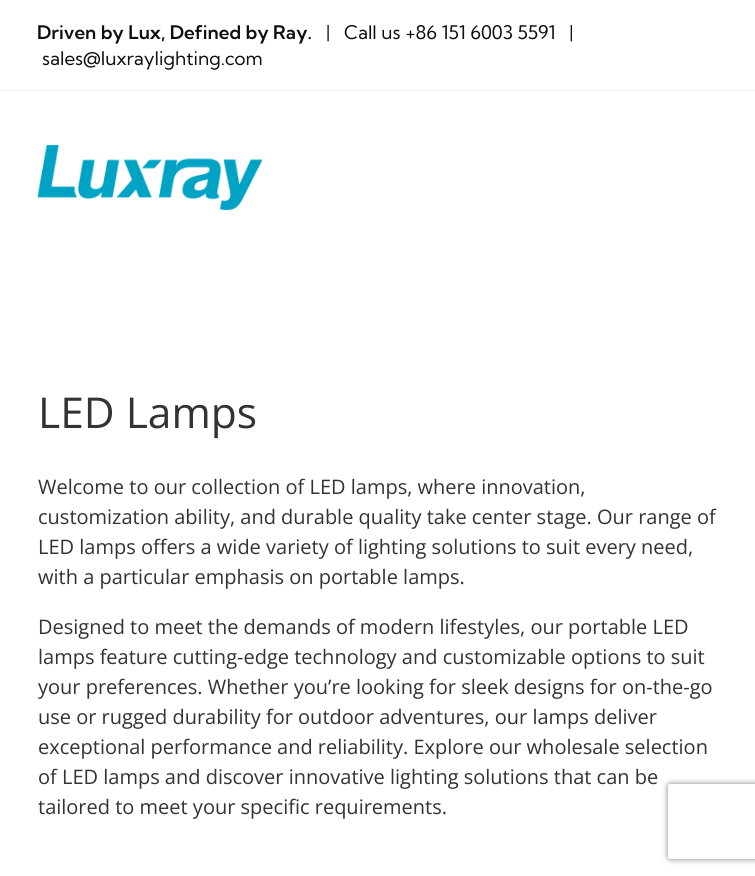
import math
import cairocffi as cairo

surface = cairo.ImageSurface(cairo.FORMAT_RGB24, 755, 876)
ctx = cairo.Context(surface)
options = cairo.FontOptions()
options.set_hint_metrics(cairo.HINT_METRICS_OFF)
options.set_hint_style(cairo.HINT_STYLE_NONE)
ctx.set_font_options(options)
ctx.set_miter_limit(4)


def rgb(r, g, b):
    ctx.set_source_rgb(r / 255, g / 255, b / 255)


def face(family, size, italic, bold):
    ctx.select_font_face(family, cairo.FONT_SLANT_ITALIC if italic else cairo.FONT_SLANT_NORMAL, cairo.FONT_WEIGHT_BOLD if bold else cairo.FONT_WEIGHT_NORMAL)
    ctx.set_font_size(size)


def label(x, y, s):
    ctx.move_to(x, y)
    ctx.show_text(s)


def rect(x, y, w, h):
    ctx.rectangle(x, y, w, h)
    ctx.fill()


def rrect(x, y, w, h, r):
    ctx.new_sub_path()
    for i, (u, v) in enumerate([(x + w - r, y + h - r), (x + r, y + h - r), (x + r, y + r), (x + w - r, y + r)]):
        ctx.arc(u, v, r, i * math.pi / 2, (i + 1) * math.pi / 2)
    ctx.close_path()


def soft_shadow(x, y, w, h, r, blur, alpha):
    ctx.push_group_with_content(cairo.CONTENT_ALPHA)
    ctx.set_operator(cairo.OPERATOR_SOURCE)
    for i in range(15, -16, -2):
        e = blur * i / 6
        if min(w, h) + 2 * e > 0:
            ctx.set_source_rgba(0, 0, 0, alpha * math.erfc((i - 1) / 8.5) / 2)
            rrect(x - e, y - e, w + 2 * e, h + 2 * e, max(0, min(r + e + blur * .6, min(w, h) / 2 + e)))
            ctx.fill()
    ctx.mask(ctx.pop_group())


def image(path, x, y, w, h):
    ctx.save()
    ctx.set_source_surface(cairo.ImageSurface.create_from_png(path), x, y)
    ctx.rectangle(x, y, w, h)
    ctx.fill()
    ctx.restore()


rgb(255, 255, 255)
ctx.paint()
rgb(241, 241, 241)
rect(0, 90, 755, 1)
face('Kumbh Sans SemiBold', 18.75, 0, 0)
rgb(15, 15, 15)
label(37, 39, 'Driven by Lux, Defined by Ray.')
face('Kumbh Sans', 18.75, 0, 0)
label(326, 39, '|   Call us +86 151 6003 5591   |')
label(42, 65, 'sales@luxraylighting.com')
image('image0.png', 37, 145, 226, 65)
face('Open Sans', 42.5, 0, 0)
rgb(51, 51, 51)
label(38, 428, 'LED Lamps')
face('Open Sans', 20, 0, 0)
label(38, 494, 'Welcome to our collection of LED lamps, where innovation,')
label(38, 524, 'customization ability, and durable quality take center stage. Our range of')
label(38, 554, 'LED lamps offers a wide variety of lighting solutions to suit every need,')
label(38, 584, 'with a particular emphasis on portable lamps.')
label(38, 634, 'Designed to meet the demands of modern lifestyles, our portable LED')
label(38, 664, 'lamps feature cutting-edge technology and customizable options to suit')
ctx.save()
ctx.rectangle(38, 355, 680, 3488)
ctx.clip()
label(38, 694, 'your preferences. Whether you’re looking for sleek designs for on-the-go')
ctx.restore()
label(38, 724, 'use or rugged durability for outdoor adventures, our lamps deliver')
label(38, 754, 'exceptional performance and reliability. Explore our wholesale selection')
label(38, 784, 'of LED lamps and discover innovative lighting solutions that can be')
label(38, 814, 'tailored to meet your specific requirements.')
ctx.save()
ctx.set_fill_rule(cairo.FILL_RULE_EVEN_ODD)
ctx.new_path()
ctx.move_to(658, 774)
ctx.line_to(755, 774)
ctx.line_to(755, 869)
ctx.line_to(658, 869)
ctx.close_path()
ctx.move_to(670.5, 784)
ctx.line_to(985.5, 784)
ctx.curve_to(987, 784, 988, 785, 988, 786.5)
ctx.line_to(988, 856.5)
ctx.curve_to(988, 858, 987, 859, 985.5, 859)
ctx.line_to(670.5, 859)
ctx.curve_to(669, 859, 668, 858, 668, 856.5)
ctx.line_to(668, 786.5)
ctx.curve_to(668, 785, 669, 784, 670.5, 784)
ctx.close_path()
ctx.clip()
rgb(128, 128, 128)
soft_shadow(668, 784, 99, 75, 2.5, 3, 1)
ctx.restore()
surface.write_to_png('render.png')
